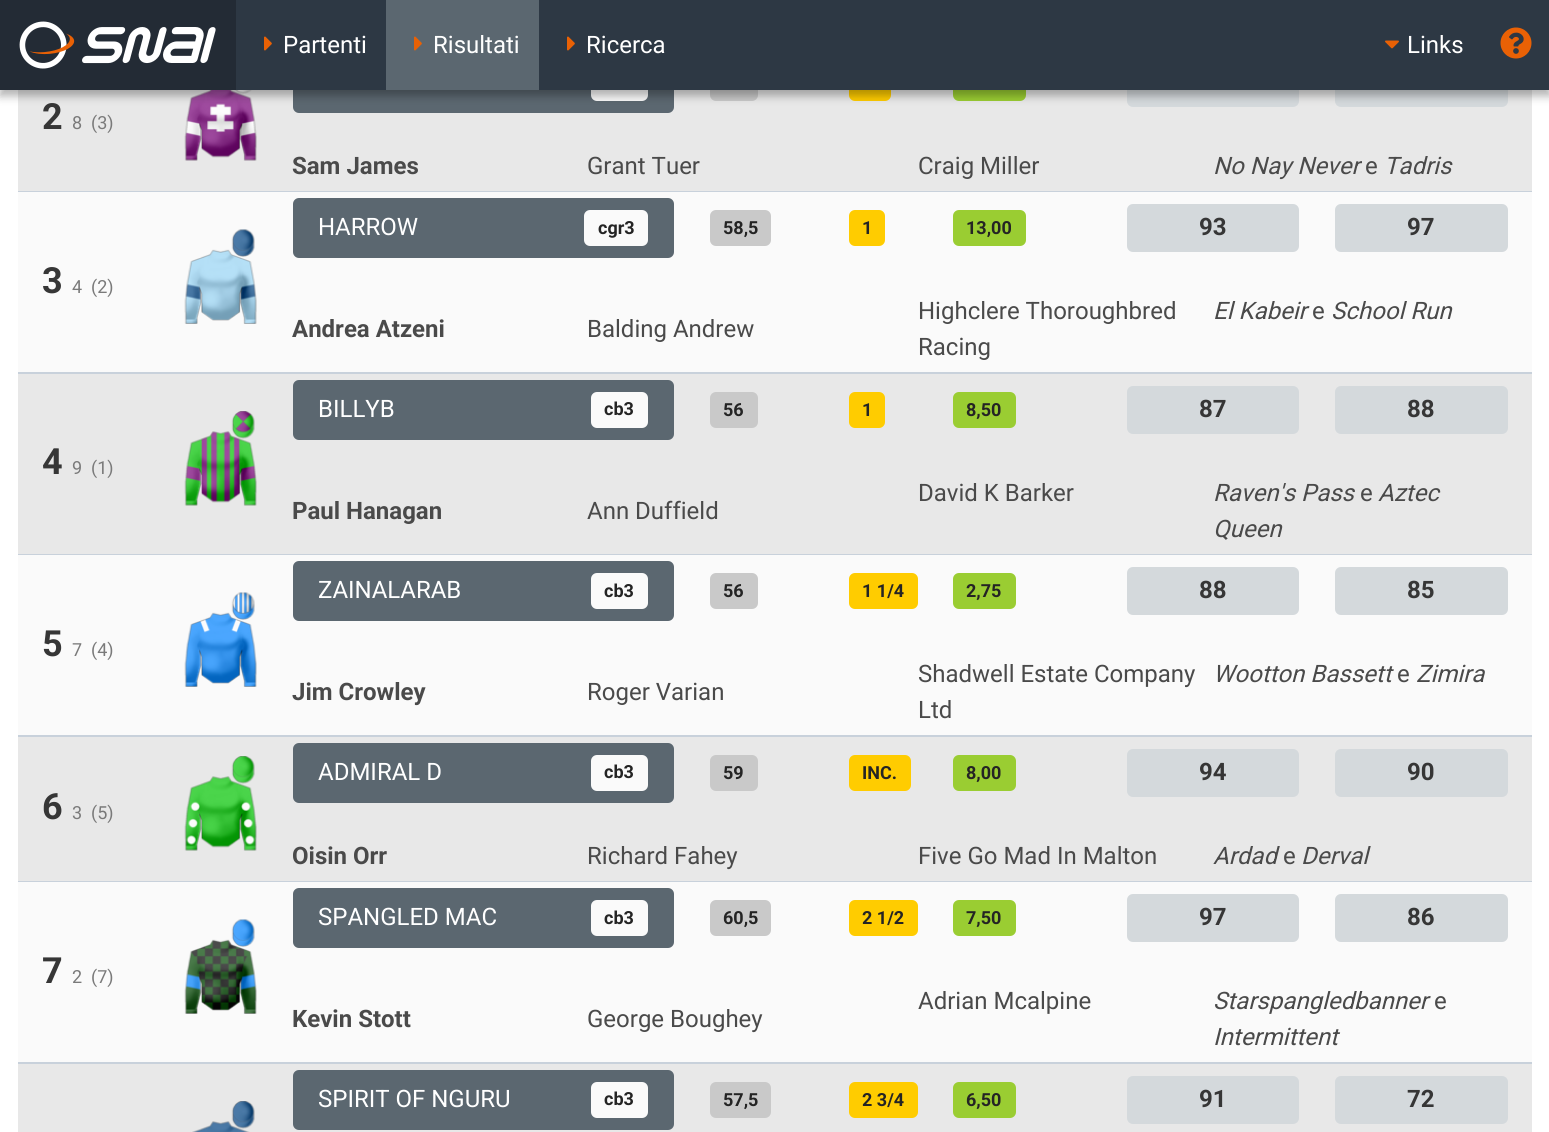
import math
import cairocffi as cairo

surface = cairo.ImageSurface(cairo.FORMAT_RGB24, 1549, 1132)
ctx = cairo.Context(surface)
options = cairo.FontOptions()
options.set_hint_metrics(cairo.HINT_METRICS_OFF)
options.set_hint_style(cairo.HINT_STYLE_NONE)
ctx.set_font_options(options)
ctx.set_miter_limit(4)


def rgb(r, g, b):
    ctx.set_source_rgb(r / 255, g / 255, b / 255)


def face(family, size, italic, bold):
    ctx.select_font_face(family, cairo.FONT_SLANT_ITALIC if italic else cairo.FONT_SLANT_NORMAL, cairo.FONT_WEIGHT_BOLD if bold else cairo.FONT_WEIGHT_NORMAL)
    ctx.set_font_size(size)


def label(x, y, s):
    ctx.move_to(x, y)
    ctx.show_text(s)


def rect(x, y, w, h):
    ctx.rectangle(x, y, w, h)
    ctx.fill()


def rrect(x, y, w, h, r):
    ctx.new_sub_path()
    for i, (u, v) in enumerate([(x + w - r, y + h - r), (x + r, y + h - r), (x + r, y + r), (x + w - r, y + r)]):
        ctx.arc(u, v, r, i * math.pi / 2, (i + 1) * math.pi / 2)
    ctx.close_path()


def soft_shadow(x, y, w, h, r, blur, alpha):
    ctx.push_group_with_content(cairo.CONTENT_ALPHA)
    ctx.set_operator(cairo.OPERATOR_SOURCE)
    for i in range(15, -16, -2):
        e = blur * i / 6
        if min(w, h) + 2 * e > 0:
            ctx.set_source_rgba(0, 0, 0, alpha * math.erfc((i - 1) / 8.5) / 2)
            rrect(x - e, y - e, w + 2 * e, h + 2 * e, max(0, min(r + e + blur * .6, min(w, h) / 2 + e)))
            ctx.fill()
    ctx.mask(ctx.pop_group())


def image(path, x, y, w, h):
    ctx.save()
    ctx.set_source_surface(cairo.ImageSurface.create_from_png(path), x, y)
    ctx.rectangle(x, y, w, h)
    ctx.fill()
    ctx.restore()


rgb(255, 255, 255)
ctx.paint()
rgb(232, 232, 232)
rect(18, 90, 1514, 101)
image('image5.png', 184, 90, 73, 71)
rgb(91, 103, 112)
rrect(293, 53, 381, 60, 6)
ctx.fill()
rgb(250, 250, 250)
rrect(591, 65, 57, 36, 6)
ctx.fill()
rgb(201, 201, 201)
rrect(710, 65, 48, 36, 6)
ctx.fill()
rgb(255, 204, 0)
rrect(849, 65, 42, 36, 6)
ctx.fill()
rgb(154, 205, 50)
rrect(953, 65, 73, 36, 6)
ctx.fill()
rgb(212, 217, 220)
rrect(1127, 59, 172, 48, 6)
ctx.fill()
rrect(1335, 59, 173, 48, 6)
ctx.fill()
rgb(0, 0, 0)
soft_shadow(0, 6, 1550, 90, 0, 4.5, 0.3)
rgb(45, 56, 68)
rect(236, 0, 1313, 90)
rgb(35, 43, 53)
rect(0, 0, 236, 90)
image('image0.png', 19, 21, 197, 48)
image('image1.png', 264, 36, 8, 15)
face('Roboto', 24, 0, 0)
rgb(255, 255, 255)
label(283, 53, 'Partenti')
rgb(91, 103, 112)
rect(386, 0, 153, 90)
image('image2.png', 414, 36, 8, 15)
rgb(255, 255, 255)
label(433, 53, 'Risultati')
image('image1.png', 567, 36, 8, 15)
label(586, 53, 'Ricerca')
image('image3.png', 1385, 40, 14, 9)
label(1407, 53, 'Links')
image('image4.png', 1500, 27, 32, 32)
rgb(200, 209, 219)
rect(18, 191, 1514, 1)
face('Roboto', 36, 0, 1)
rgb(54, 54, 54)
label(42, 129, '2')
face('Roboto', 18, 0, 0)
rgb(122, 122, 122)
label(72, 129, '8')
label(91, 129, '(3)')
face('Roboto', 24, 0, 1)
rgb(74, 74, 74)
label(292, 174, 'Sam James')
face('Roboto', 24, 0, 0)
label(587, 174, 'Grant Tuer')
label(918, 174, 'Craig Miller')
face('Roboto', 24, 1, 0)
label(1213, 174, 'No Nay Never')
face('Roboto', 24, 0, 0)
label(1365, 174, 'e')
face('Roboto', 24, 1, 0)
label(1384, 174, 'Tadris')
rgb(250, 250, 250)
rect(18, 192, 1514, 180)
rgb(200, 209, 219)
rect(18, 372, 1514, 2)
face('Roboto', 36, 0, 1)
rgb(54, 54, 54)
label(42, 293, '3')
face('Roboto', 18, 0, 0)
rgb(122, 122, 122)
label(72, 293, '4')
label(91, 293, '(2)')
image('image6.png', 184, 229, 73, 95)
rgb(91, 103, 112)
rrect(293, 198, 381, 60, 6)
ctx.fill()
face('Roboto', 24, 0, 0)
rgb(255, 255, 255)
label(318, 235, 'HARROW')
rgb(250, 250, 250)
rrect(584, 210, 64, 36, 6)
ctx.fill()
face('Roboto', 18, 0, 1)
rgb(36, 36, 36)
label(598, 234, 'cgr3')
rgb(201, 201, 201)
rrect(710, 210, 61, 36, 6)
ctx.fill()
rgb(36, 36, 36)
label(723, 234, '58,5')
rgb(255, 204, 0)
rrect(849, 210, 36, 36, 6)
ctx.fill()
rgb(36, 36, 36)
label(862, 234, '1')
rgb(154, 205, 50)
rrect(953, 210, 73, 36, 6)
ctx.fill()
rgb(36, 36, 36)
label(966, 234, '13,00')
rgb(212, 217, 220)
rrect(1127, 204, 172, 48, 6)
ctx.fill()
face('Roboto', 24, 0, 1)
rgb(54, 54, 54)
label(1199, 235, '93')
rgb(212, 217, 220)
rrect(1335, 204, 173, 48, 6)
ctx.fill()
rgb(54, 54, 54)
label(1407, 235, '97')
rgb(74, 74, 74)
label(292, 337, 'Andrea Atzeni')
face('Roboto', 24, 0, 0)
label(587, 337, 'Balding Andrew')
label(918, 319, 'Highclere Thoroughbred')
label(918, 355, 'Racing')
face('Roboto', 24, 1, 0)
label(1213, 319, 'El Kabeir')
face('Roboto', 24, 0, 0)
label(1312, 319, 'e')
face('Roboto', 24, 1, 0)
label(1331, 319, 'School Run')
rgb(232, 232, 232)
rect(18, 374, 1514, 180)
rgb(200, 209, 219)
rect(18, 554, 1514, 1)
face('Roboto', 36, 0, 1)
rgb(54, 54, 54)
label(42, 474, '4')
face('Roboto', 18, 0, 0)
rgb(122, 122, 122)
label(72, 474, '9')
label(91, 474, '(1)')
image('image7.png', 184, 411, 73, 95)
rgb(91, 103, 112)
rrect(293, 380, 381, 60, 6)
ctx.fill()
face('Roboto', 24, 0, 0)
rgb(255, 255, 255)
label(318, 417, 'BILLYB')
rgb(250, 250, 250)
rrect(591, 392, 57, 36, 6)
ctx.fill()
face('Roboto', 18, 0, 1)
rgb(36, 36, 36)
label(604, 415, 'cb3')
rgb(201, 201, 201)
rrect(710, 392, 48, 36, 6)
ctx.fill()
rgb(36, 36, 36)
label(723, 416, '56')
rgb(255, 204, 0)
rrect(849, 392, 36, 36, 6)
ctx.fill()
rgb(36, 36, 36)
label(862, 416, '1')
rgb(154, 205, 50)
rrect(953, 392, 63, 36, 6)
ctx.fill()
rgb(36, 36, 36)
label(966, 416, '8,50')
rgb(212, 217, 220)
rrect(1127, 386, 172, 48, 6)
ctx.fill()
face('Roboto', 24, 0, 1)
rgb(54, 54, 54)
label(1199, 417, '87')
rgb(212, 217, 220)
rrect(1335, 386, 173, 48, 6)
ctx.fill()
rgb(54, 54, 54)
label(1407, 417, '88')
rgb(74, 74, 74)
label(292, 519, 'Paul Hanagan')
face('Roboto', 24, 0, 0)
label(587, 519, 'Ann Duffield')
label(918, 501, 'David K Barker')
face('Roboto', 24, 1, 0)
label(1213, 501, 'Raven\'s Pass')
face('Roboto', 24, 0, 0)
label(1360, 501, 'e')
face('Roboto', 24, 1, 0)
label(1378, 501, 'Aztec')
label(1213, 537, 'Queen')
rgb(250, 250, 250)
rect(18, 555, 1514, 180)
rgb(200, 209, 219)
rect(18, 735, 1514, 2)
face('Roboto', 36, 0, 1)
rgb(54, 54, 54)
label(42, 656, '5')
face('Roboto', 18, 0, 0)
rgb(122, 122, 122)
label(72, 656, '7')
label(91, 656, '(4)')
image('image8.png', 184, 592, 73, 95)
rgb(91, 103, 112)
rrect(293, 561, 381, 60, 6)
ctx.fill()
face('Roboto', 24, 0, 0)
rgb(255, 255, 255)
label(318, 598, 'ZAINALARAB')
rgb(250, 250, 250)
rrect(591, 573, 57, 36, 6)
ctx.fill()
face('Roboto', 18, 0, 1)
rgb(36, 36, 36)
label(604, 597, 'cb3')
rgb(201, 201, 201)
rrect(710, 573, 48, 36, 6)
ctx.fill()
rgb(36, 36, 36)
label(723, 597, '56')
rgb(255, 204, 0)
rrect(849, 573, 69, 36, 6)
ctx.fill()
rgb(36, 36, 36)
label(862, 597, '1 1/4')
rgb(154, 205, 50)
rrect(953, 573, 63, 36, 6)
ctx.fill()
rgb(36, 36, 36)
label(966, 597, '2,75')
rgb(212, 217, 220)
rrect(1127, 567, 172, 48, 6)
ctx.fill()
face('Roboto', 24, 0, 1)
rgb(54, 54, 54)
label(1199, 598, '88')
rgb(212, 217, 220)
rrect(1335, 567, 173, 48, 6)
ctx.fill()
rgb(54, 54, 54)
label(1407, 598, '85')
rgb(74, 74, 74)
label(292, 700, 'Jim Crowley')
face('Roboto', 24, 0, 0)
label(587, 700, 'Roger Varian')
label(918, 682, 'Shadwell Estate Company')
label(918, 718, 'Ltd')
face('Roboto', 24, 1, 0)
label(1213, 682, 'Wootton Bassett')
face('Roboto', 24, 0, 0)
label(1397, 682, 'e')
face('Roboto', 24, 1, 0)
label(1416, 682, 'Zimira')
rgb(232, 232, 232)
rect(18, 737, 1514, 144)
rgb(200, 209, 219)
rect(18, 881, 1514, 1)
face('Roboto', 36, 0, 1)
rgb(54, 54, 54)
label(42, 819, '6')
face('Roboto', 18, 0, 0)
rgb(122, 122, 122)
label(72, 819, '3')
label(91, 819, '(5)')
image('image9.png', 184, 756, 73, 95)
rgb(91, 103, 112)
rrect(293, 743, 381, 60, 6)
ctx.fill()
face('Roboto', 24, 0, 0)
rgb(255, 255, 255)
label(318, 780, 'ADMIRAL D')
rgb(250, 250, 250)
rrect(591, 755, 57, 36, 6)
ctx.fill()
face('Roboto', 18, 0, 1)
rgb(36, 36, 36)
label(604, 778, 'cb3')
rgb(201, 201, 201)
rrect(710, 755, 48, 36, 6)
ctx.fill()
rgb(36, 36, 36)
label(723, 779, '59')
rgb(255, 204, 0)
rrect(849, 755, 62, 36, 6)
ctx.fill()
rgb(36, 36, 36)
label(862, 779, 'INC.')
rgb(154, 205, 50)
rrect(953, 755, 63, 36, 6)
ctx.fill()
rgb(36, 36, 36)
label(966, 779, '8,00')
rgb(212, 217, 220)
rrect(1127, 749, 172, 48, 6)
ctx.fill()
face('Roboto', 24, 0, 1)
rgb(54, 54, 54)
label(1199, 780, '94')
rgb(212, 217, 220)
rrect(1335, 749, 173, 48, 6)
ctx.fill()
rgb(54, 54, 54)
label(1407, 780, '90')
rgb(74, 74, 74)
label(292, 864, 'Oisin Orr')
face('Roboto', 24, 0, 0)
label(587, 864, 'Richard Fahey')
label(918, 864, 'Five Go Mad In Malton')
face('Roboto', 24, 1, 0)
label(1213, 864, 'Ardad')
face('Roboto', 24, 0, 0)
label(1283, 864, 'e')
face('Roboto', 24, 1, 0)
label(1301, 864, 'Derval')
rgb(250, 250, 250)
rect(18, 882, 1514, 180)
rgb(200, 209, 219)
rect(18, 1062, 1514, 2)
face('Roboto', 36, 0, 1)
rgb(54, 54, 54)
label(42, 983, '7')
face('Roboto', 18, 0, 0)
rgb(122, 122, 122)
label(72, 983, '2')
label(91, 983, '(7)')
image('image10.png', 184, 919, 73, 95)
rgb(91, 103, 112)
rrect(293, 888, 381, 60, 6)
ctx.fill()
face('Roboto', 24, 0, 0)
rgb(255, 255, 255)
label(318, 925, 'SPANGLED MAC')
rgb(250, 250, 250)
rrect(591, 900, 57, 36, 6)
ctx.fill()
face('Roboto', 18, 0, 1)
rgb(36, 36, 36)
label(604, 924, 'cb3')
rgb(201, 201, 201)
rrect(710, 900, 61, 36, 6)
ctx.fill()
rgb(36, 36, 36)
label(723, 924, '60,5')
rgb(255, 204, 0)
rrect(849, 900, 69, 36, 6)
ctx.fill()
rgb(36, 36, 36)
label(862, 924, '2 1/2')
rgb(154, 205, 50)
rrect(953, 900, 63, 36, 6)
ctx.fill()
rgb(36, 36, 36)
label(966, 924, '7,50')
rgb(212, 217, 220)
rrect(1127, 894, 172, 48, 6)
ctx.fill()
face('Roboto', 24, 0, 1)
rgb(54, 54, 54)
label(1199, 925, '97')
rgb(212, 217, 220)
rrect(1335, 894, 173, 48, 6)
ctx.fill()
rgb(54, 54, 54)
label(1407, 925, '86')
rgb(74, 74, 74)
label(292, 1027, 'Kevin Stott')
face('Roboto', 24, 0, 0)
label(587, 1027, 'George Boughey')
label(918, 1009, 'Adrian Mcalpine')
face('Roboto', 24, 1, 0)
label(1213, 1009, 'Starspangledbanner')
face('Roboto', 24, 0, 0)
label(1434, 1009, 'e')
face('Roboto', 24, 1, 0)
label(1213, 1045, 'Intermittent')
rgb(232, 232, 232)
rect(18, 1064, 1514, 68)
image('image11.png', 192, 1101, 63, 31)
rgb(91, 103, 112)
rrect(293, 1070, 381, 60, 6)
ctx.fill()
face('Roboto', 24, 0, 0)
rgb(255, 255, 255)
label(318, 1107, 'SPIRIT OF NGURU')
rgb(250, 250, 250)
rrect(591, 1082, 57, 36, 6)
ctx.fill()
face('Roboto', 18, 0, 1)
rgb(36, 36, 36)
label(604, 1105, 'cb3')
rgb(201, 201, 201)
rrect(710, 1082, 61, 36, 6)
ctx.fill()
rgb(36, 36, 36)
label(723, 1106, '57,5')
rgb(255, 204, 0)
rrect(849, 1082, 69, 36, 6)
ctx.fill()
rgb(36, 36, 36)
label(862, 1106, '2 3/4')
rgb(154, 205, 50)
rrect(953, 1082, 63, 36, 6)
ctx.fill()
rgb(36, 36, 36)
label(966, 1106, '6,50')
rgb(212, 217, 220)
rrect(1127, 1076, 172, 48, 6)
ctx.fill()
face('Roboto', 24, 0, 1)
rgb(54, 54, 54)
label(1199, 1107, '91')
rgb(212, 217, 220)
rrect(1335, 1076, 173, 48, 6)
ctx.fill()
rgb(54, 54, 54)
label(1407, 1107, '72')
surface.write_to_png('render.png')
